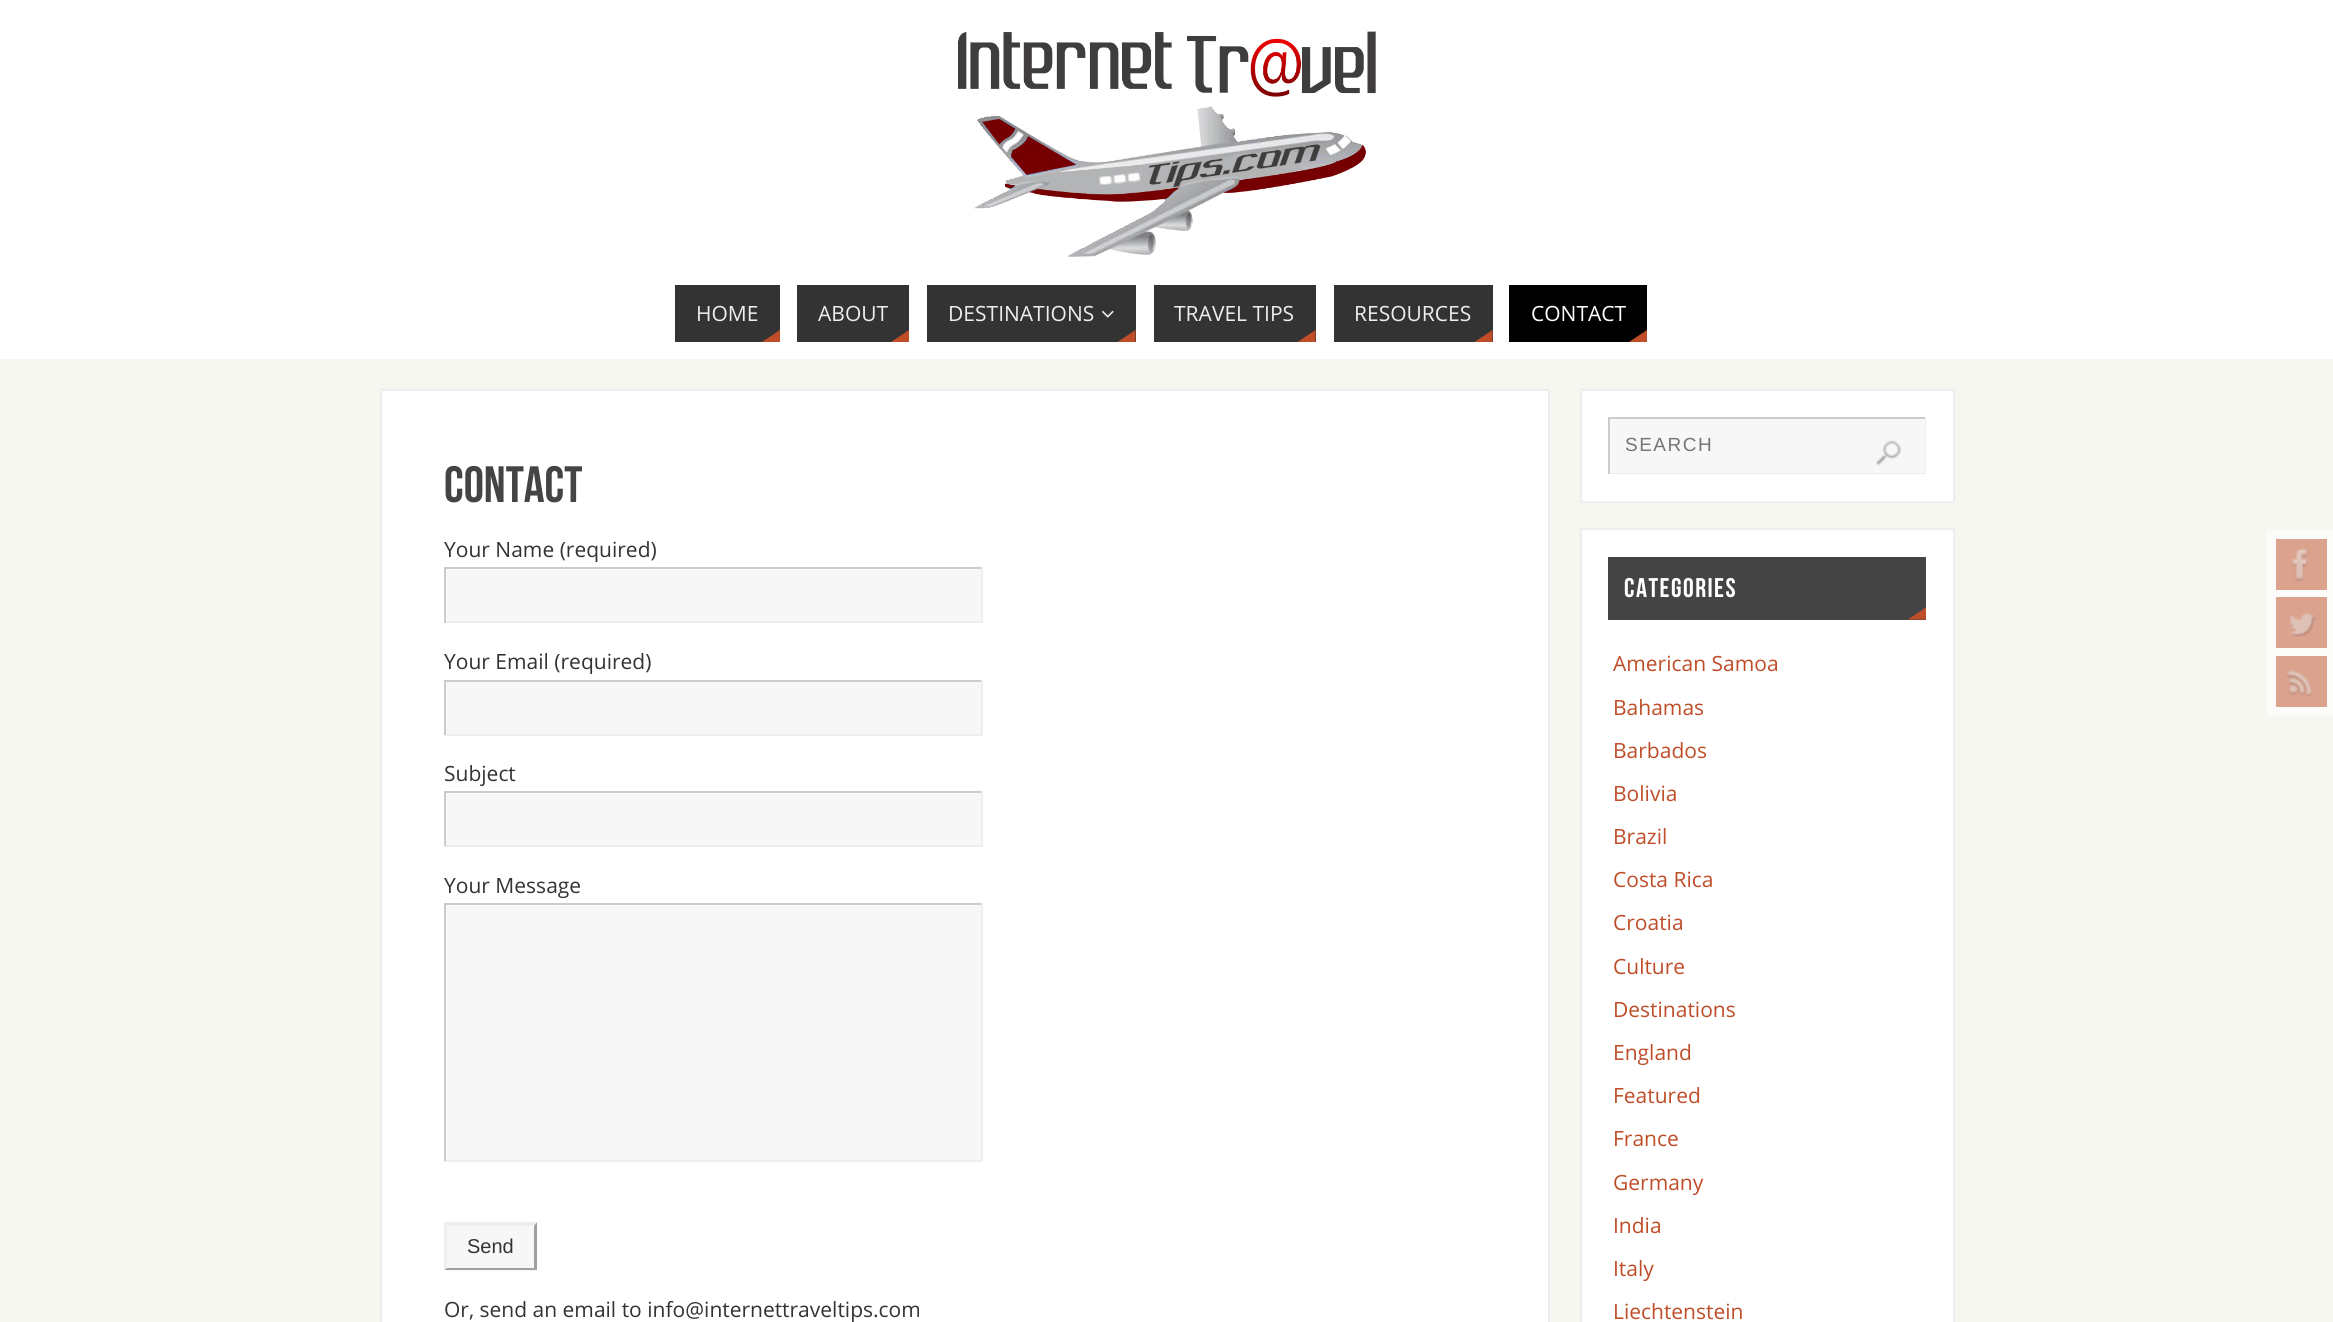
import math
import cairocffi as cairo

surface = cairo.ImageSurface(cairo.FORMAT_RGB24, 2333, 1322)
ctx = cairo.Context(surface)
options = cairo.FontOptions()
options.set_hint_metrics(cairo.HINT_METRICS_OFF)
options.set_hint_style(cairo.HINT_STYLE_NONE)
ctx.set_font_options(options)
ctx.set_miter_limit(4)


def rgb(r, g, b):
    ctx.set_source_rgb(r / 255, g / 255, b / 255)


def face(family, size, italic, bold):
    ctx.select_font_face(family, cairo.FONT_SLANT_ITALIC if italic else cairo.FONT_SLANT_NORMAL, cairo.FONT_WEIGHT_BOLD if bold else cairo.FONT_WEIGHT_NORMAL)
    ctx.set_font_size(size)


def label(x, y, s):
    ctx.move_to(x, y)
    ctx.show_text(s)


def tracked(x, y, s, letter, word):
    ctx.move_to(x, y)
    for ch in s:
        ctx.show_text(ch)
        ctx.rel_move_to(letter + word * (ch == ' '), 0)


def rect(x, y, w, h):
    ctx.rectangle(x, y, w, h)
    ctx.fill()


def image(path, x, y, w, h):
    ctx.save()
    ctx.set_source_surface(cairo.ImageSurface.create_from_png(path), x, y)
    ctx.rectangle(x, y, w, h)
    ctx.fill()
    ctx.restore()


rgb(247, 247, 242)
ctx.paint()
rgb(255, 255, 255)
rect(0, 0, 2333, 359)
image('image0.png', 958, 31, 418, 226)
rgb(51, 51, 51)
rect(675, 285, 105, 57)
face('Open Sans', 21, 0, 0)
rgb(238, 238, 238)
label(696, 321, 'HOME')
rgb(191, 77, 40)
ctx.new_path()
ctx.move_to(780, 342)
ctx.line_to(762, 342)
ctx.line_to(780, 330)
ctx.close_path()
ctx.fill()
rgb(51, 51, 51)
rect(797, 285, 112, 57)
rgb(238, 238, 238)
label(818, 321, 'ABOUT')
rgb(191, 77, 40)
ctx.new_path()
ctx.move_to(909, 342)
ctx.line_to(891, 342)
ctx.line_to(909, 330)
ctx.close_path()
ctx.fill()
rgb(51, 51, 51)
rect(927, 285, 209, 57)
rgb(238, 238, 238)
label(948, 321, 'DESTINATIONS')
image('image1.png', 1102, 310, 12, 8)
rgb(191, 77, 40)
ctx.new_path()
ctx.move_to(1135.5, 342)
ctx.line_to(1117.5, 342)
ctx.line_to(1135.5, 330)
ctx.close_path()
ctx.fill()
rgb(51, 51, 51)
rect(1154, 285, 162, 57)
rgb(238, 238, 238)
label(1174, 321, 'TRAVEL TIPS')
rgb(191, 77, 40)
ctx.new_path()
ctx.move_to(1315.5, 342)
ctx.line_to(1297.5, 342)
ctx.line_to(1315.5, 330)
ctx.close_path()
ctx.fill()
rgb(51, 51, 51)
rect(1334, 285, 159, 57)
rgb(238, 238, 238)
label(1354, 321, 'RESOURCES')
rgb(191, 77, 40)
ctx.new_path()
ctx.move_to(1492.5, 342)
ctx.line_to(1474.5, 342)
ctx.line_to(1492.5, 330)
ctx.close_path()
ctx.fill()
rgb(0, 0, 0)
rect(1509, 285, 138, 57)
rgb(255, 255, 255)
label(1531, 321, 'CONTACT')
rgb(191, 77, 40)
ctx.new_path()
ctx.move_to(1647, 342)
ctx.line_to(1629, 342)
ctx.line_to(1647, 330)
ctx.close_path()
ctx.fill()
rgb(255, 255, 255)
ctx.rectangle(381, 390, 1168, 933)
ctx.fill_preserve()
rgb(238, 238, 238)
ctx.stroke()
face('Bebas Neue', 51, 0, 0)
rgb(68, 68, 68)
label(444, 502, 'Contact')
face('Open Sans', 21, 0, 0)
rgb(51, 51, 51)
label(444, 557, 'Your Name (required)')
rgb(247, 247, 247)
rect(446, 569, 535, 52)
rgb(204, 204, 204)
rect(444, 567, 539, 2)
rgb(238, 238, 238)
rect(981, 567, 2, 56)
rect(444, 621, 539, 2)
rgb(204, 204, 204)
rect(444, 567, 2, 56)
rgb(51, 51, 51)
label(444, 669, 'Your Email (required)')
rgb(247, 247, 247)
rect(446, 682, 535, 52)
rgb(204, 204, 204)
rect(444, 680, 539, 2)
rgb(238, 238, 238)
rect(981, 680, 2, 55)
rect(444, 734, 539, 2)
rgb(204, 204, 204)
rect(444, 680, 2, 55)
rgb(51, 51, 51)
label(444, 781, 'Subject')
rgb(247, 247, 247)
rect(446, 793, 535, 52)
rgb(204, 204, 204)
rect(444, 791, 539, 2)
rgb(238, 238, 238)
rect(981, 791, 2, 55)
rect(444, 845, 539, 2)
rgb(204, 204, 204)
rect(444, 791, 2, 55)
rgb(51, 51, 51)
label(444, 893, 'Your Message')
rgb(247, 247, 247)
rect(446, 905, 535, 255)
rgb(204, 204, 204)
rect(444, 903, 539, 2)
rgb(238, 238, 238)
rect(981, 903, 2, 258)
rect(444, 1160, 539, 2)
rgb(204, 204, 204)
rect(444, 903, 2, 258)
rgb(247, 247, 247)
rect(444, 1223, 93, 48)
rgb(238, 238, 238)
ctx.new_path()
ctx.move_to(444, 1222)
ctx.line_to(537, 1222)
ctx.line_to(534, 1226)
ctx.line_to(447, 1226)
ctx.close_path()
ctx.fill()
rgb(159, 159, 159)
ctx.new_path()
ctx.move_to(537, 1222)
ctx.line_to(537, 1270)
ctx.line_to(534, 1268)
ctx.line_to(534, 1226)
ctx.close_path()
ctx.fill()
ctx.new_path()
ctx.move_to(537, 1270)
ctx.line_to(444, 1270)
ctx.line_to(447, 1268)
ctx.line_to(534, 1268)
ctx.close_path()
ctx.fill()
rgb(238, 238, 238)
ctx.new_path()
ctx.move_to(444, 1270)
ctx.line_to(444, 1222)
ctx.line_to(447, 1226)
ctx.line_to(447, 1268)
ctx.close_path()
ctx.fill()
face('Liberation Sans', 20, 0, 0)
rgb(51, 51, 51)
label(467, 1253, 'Send')
face('Open Sans', 21, 0, 0)
label(444, 1317, 'Or, send an email to info@internettraveltips.com')
rgb(255, 255, 255)
ctx.rectangle(1581, 390, 373, 112)
ctx.fill_preserve()
rgb(238, 238, 238)
ctx.stroke()
rgb(247, 247, 247)
rect(1610, 419, 315, 54)
rgb(204, 204, 204)
rect(1608, 417, 318, 2)
rgb(238, 238, 238)
rect(1925, 417, 1, 57)
rect(1608, 473, 318, 1)
rgb(204, 204, 204)
rect(1608, 417, 2, 57)
face('Liberation Sans', 19, 0, 0)
rgb(117, 117, 117)
tracked(1625, 451, 'SEARCH', 1.5, 0)
image('image2.png', 1876, 440, 25, 26)
rgb(255, 255, 255)
ctx.rectangle(1581, 529, 373, 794)
ctx.fill_preserve()
rgb(238, 238, 238)
ctx.stroke()
rgb(68, 68, 68)
rect(1608, 557, 318, 63)
face('Bebas Neue', 27, 0, 0)
rgb(255, 255, 255)
tracked(1624, 597, 'CATEGORIES', 1.5, 0)
rgb(191, 77, 40)
ctx.new_path()
ctx.move_to(1926, 619.5)
ctx.line_to(1908, 619.5)
ctx.line_to(1926, 607.5)
ctx.close_path()
ctx.fill()
face('Open Sans', 21, 0, 0)
label(1613, 671, 'American Samoa')
label(1613, 715, 'Bahamas')
label(1613, 758, 'Barbados')
label(1613, 801, 'Bolivia')
label(1613, 844, 'Brazil')
label(1613, 887, 'Costa Rica')
label(1613, 930, 'Croatia')
label(1613, 974, 'Culture')
label(1613, 1017, 'Destinations')
label(1613, 1060, 'England')
label(1613, 1103, 'Featured')
label(1613, 1146, 'France')
label(1613, 1190, 'Germany')
label(1613, 1233, 'India')
label(1613, 1276, 'Italy')
label(1613, 1319, 'Liechtenstein')
rgb(251, 251, 249)
rect(2267, 530, 66, 186)
rgb(219, 162, 141)
rect(2276, 539, 51, 51)
image('image3.png', 2291, 548, 17, 34)
rect(2276, 597, 51, 51)
image('image4.png', 2289, 613, 27, 24)
rect(2276, 656, 51, 51)
image('image5.png', 2286, 670, 27, 27)
surface.write_to_png('render.png')
